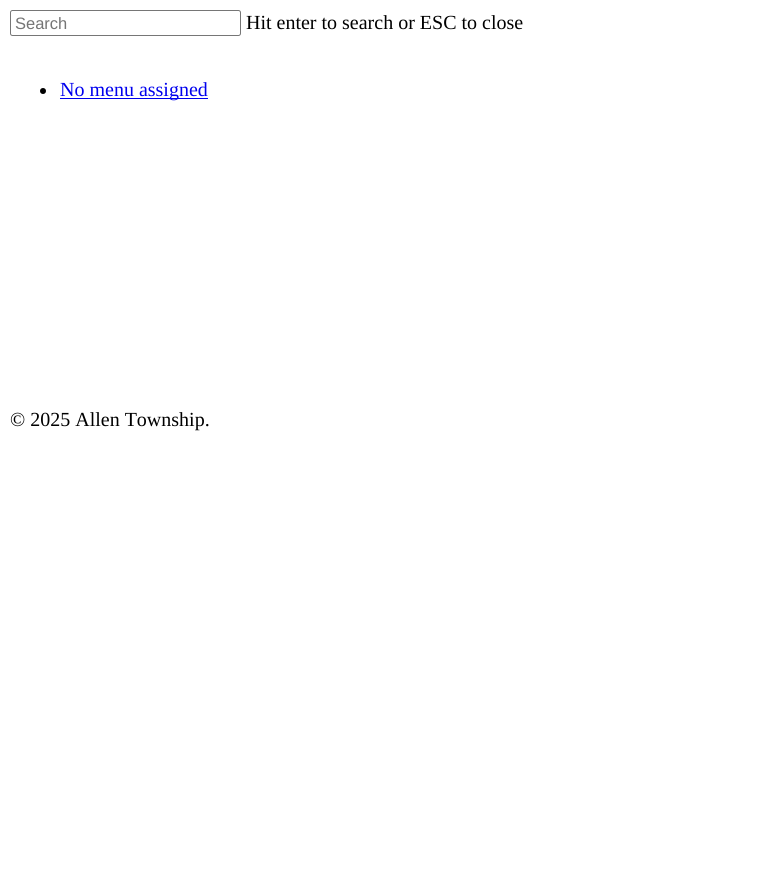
import math
import cairocffi as cairo

surface = cairo.ImageSurface(cairo.FORMAT_RGB24, 773, 888)
ctx = cairo.Context(surface)
options = cairo.FontOptions()
options.set_hint_metrics(cairo.HINT_METRICS_OFF)
options.set_hint_style(cairo.HINT_STYLE_NONE)
ctx.set_font_options(options)
ctx.set_miter_limit(4)


def rgb(r, g, b):
    ctx.set_source_rgb(r / 255, g / 255, b / 255)


def face(family, size, italic, bold):
    ctx.select_font_face(family, cairo.FONT_SLANT_ITALIC if italic else cairo.FONT_SLANT_NORMAL, cairo.FONT_WEIGHT_BOLD if bold else cairo.FONT_WEIGHT_NORMAL)
    ctx.set_font_size(size)


def label(x, y, s):
    ctx.move_to(x, y)
    ctx.show_text(s)


def rect(x, y, w, h):
    ctx.rectangle(x, y, w, h)
    ctx.fill()


def rrect(x, y, w, h, r):
    ctx.new_sub_path()
    for i, (u, v) in enumerate([(x + w - r, y + h - r), (x + r, y + h - r), (x + r, y + r), (x + w - r, y + r)]):
        ctx.arc(u, v, r, i * math.pi / 2, (i + 1) * math.pi / 2)
    ctx.close_path()


rgb(255, 255, 255)
ctx.paint()
rrect(10.5, 10.5, 230, 25, 2)
rgb(118, 118, 118)
ctx.set_line_width(1)
ctx.stroke()
face('Liberation Sans', 16.5, 0, 0)
rgb(117, 117, 117)
label(15, 29, 'Search')
face('Liberation Serif', 20, 0, 0)
rgb(0, 0, 0)
label(246, 29, 'Hit enter to search or ESC to close')
ctx.new_path()
ctx.arc(43, 91, 3, 0, 2 * math.pi)
ctx.fill()
rgb(0, 0, 238)
rect(60, 98, 148, 1)
label(60, 96, 'No menu assigned')
rgb(0, 0, 0)
label(10, 426, '© 2025 Allen Township.')
surface.write_to_png('render.png')
